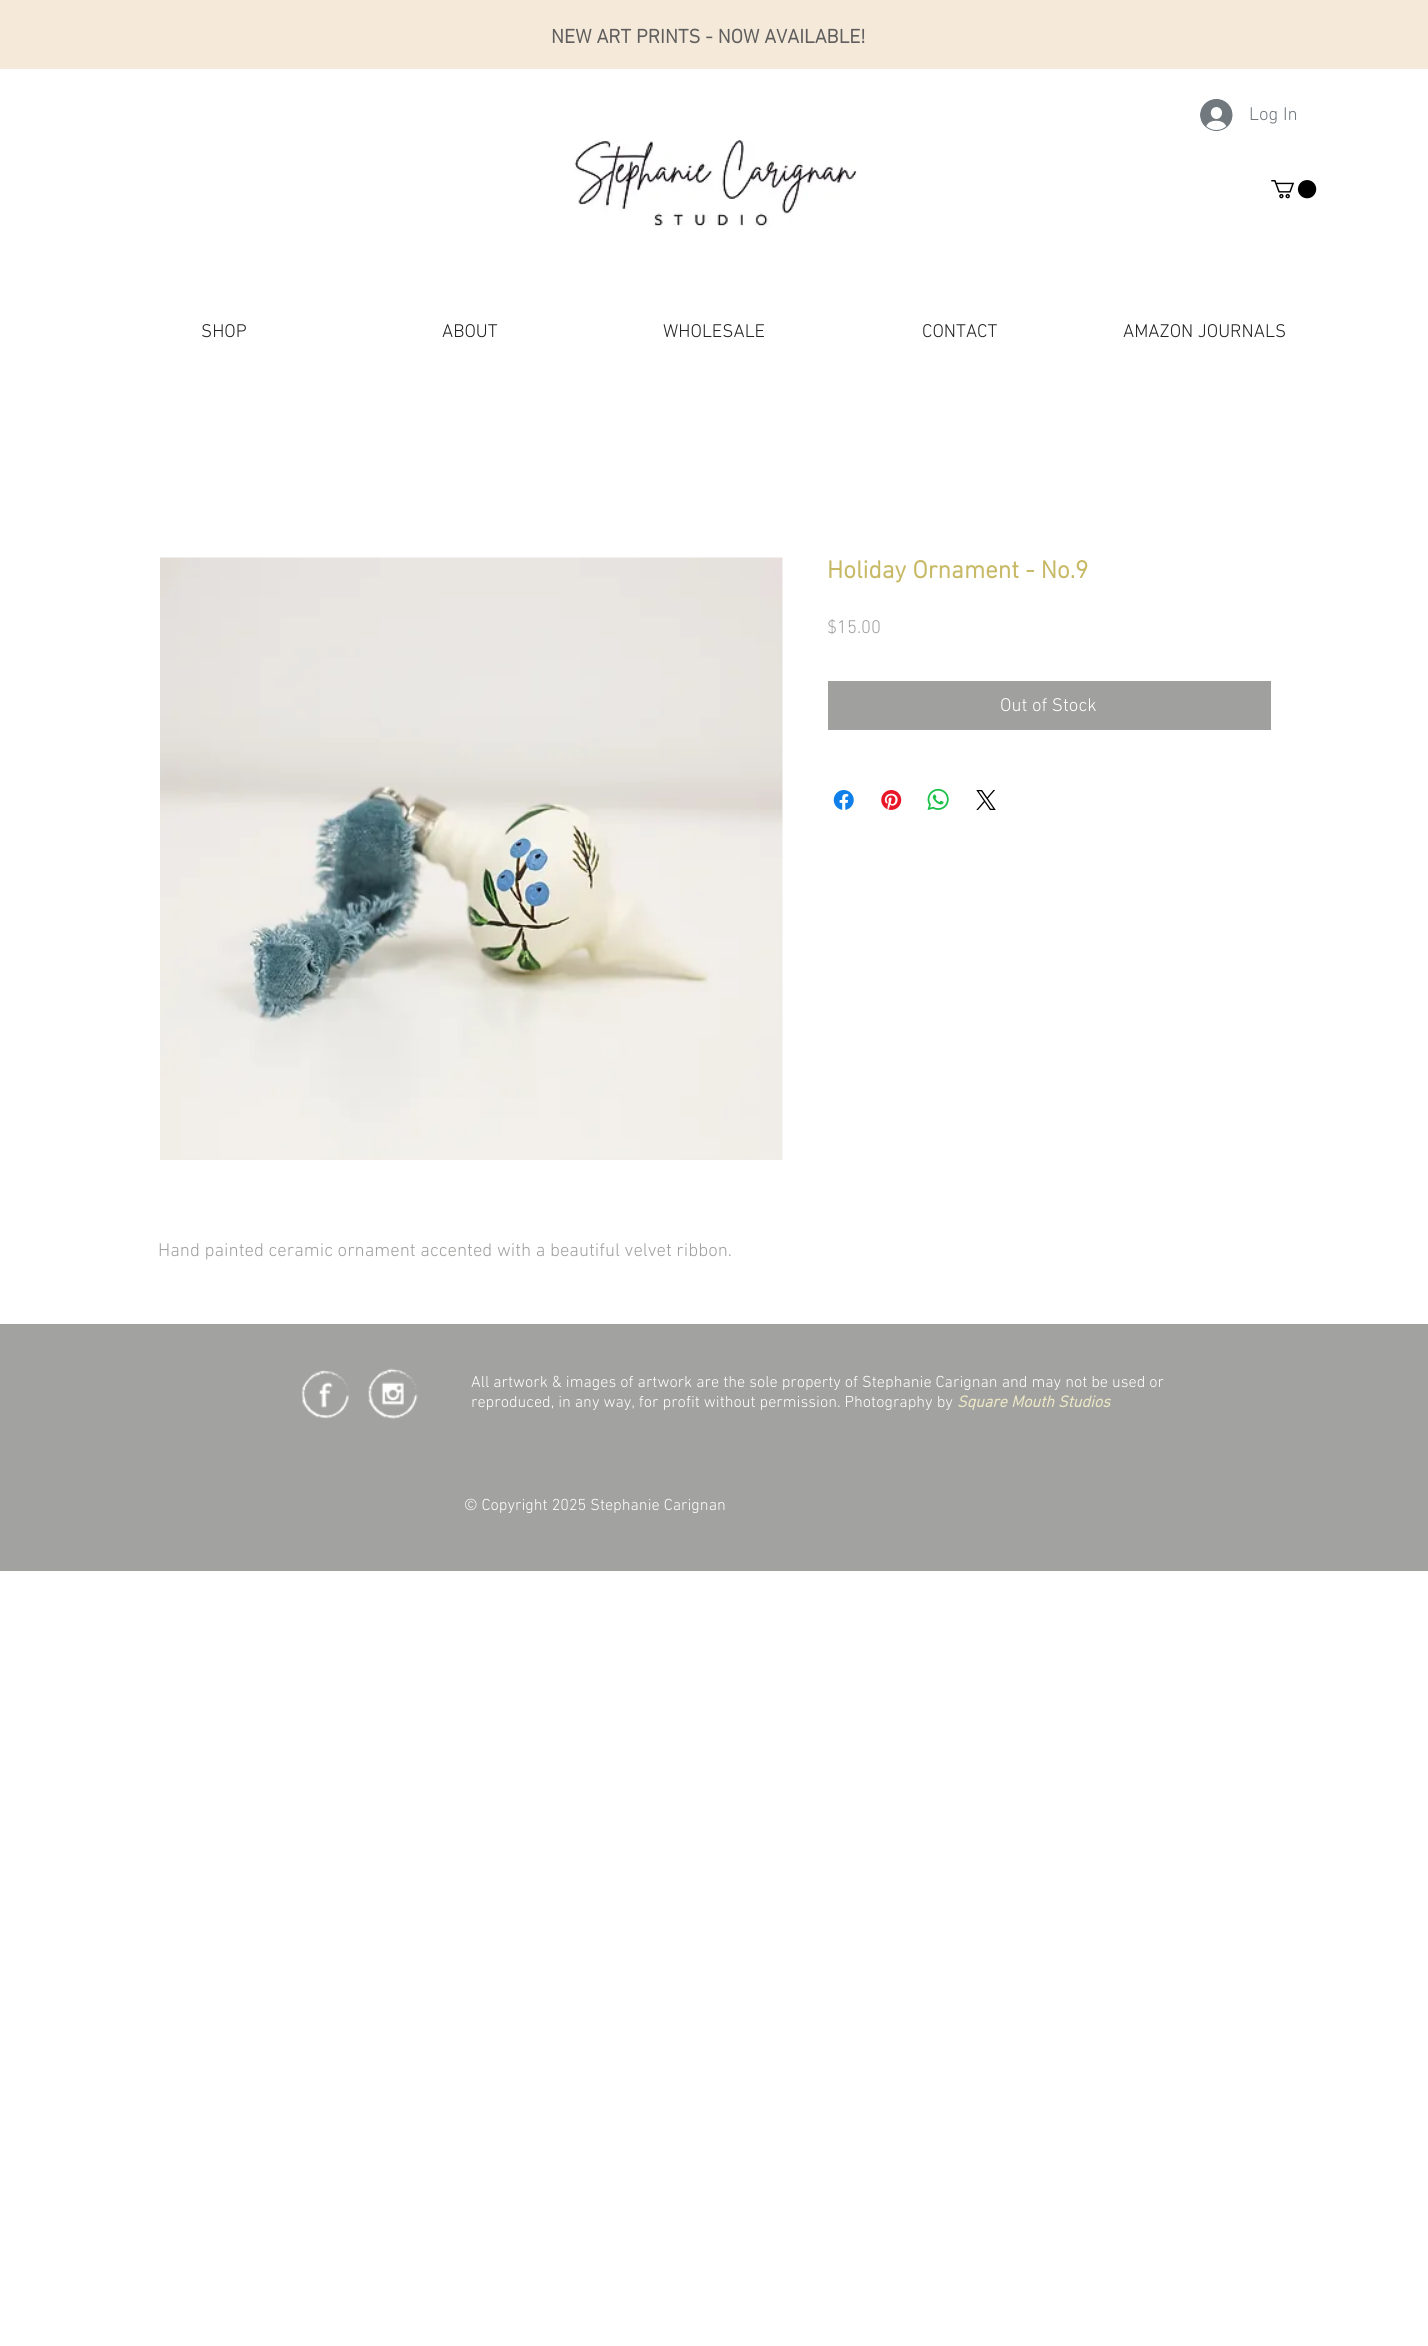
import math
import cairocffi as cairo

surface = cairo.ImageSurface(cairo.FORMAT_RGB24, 1428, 2346)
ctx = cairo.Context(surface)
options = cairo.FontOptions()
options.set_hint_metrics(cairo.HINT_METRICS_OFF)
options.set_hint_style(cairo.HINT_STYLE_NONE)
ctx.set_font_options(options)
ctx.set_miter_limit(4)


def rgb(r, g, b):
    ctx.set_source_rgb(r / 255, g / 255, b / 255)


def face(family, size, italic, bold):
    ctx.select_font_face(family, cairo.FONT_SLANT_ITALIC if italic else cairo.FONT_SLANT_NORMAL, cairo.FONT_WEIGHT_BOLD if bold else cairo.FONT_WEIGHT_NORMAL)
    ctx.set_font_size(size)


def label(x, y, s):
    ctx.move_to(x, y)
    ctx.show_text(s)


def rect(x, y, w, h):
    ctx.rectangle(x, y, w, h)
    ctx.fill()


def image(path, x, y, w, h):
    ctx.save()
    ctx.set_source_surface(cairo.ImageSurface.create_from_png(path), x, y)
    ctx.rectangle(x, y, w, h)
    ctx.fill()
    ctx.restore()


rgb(255, 255, 255)
ctx.paint()
rgb(245, 234, 217)
rect(0, 0, 1428, 69)
face('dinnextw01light', 20, 0, 1)
rgb(96, 94, 94)
label(551, 43, 'NEW ART PRINTS - NOW AVAILABLE!')
image('image0.png', 1200, 99, 33, 32)
face('dinnextw01light Light', 18.75, 0, 0)
rgb(113, 121, 127)
label(1249, 120, 'Log In')
image('image1.png', 574, 140, 283, 89)
image('image2.png', 1271, 180, 46, 19)
rgb(36, 35, 35)
label(201, 337, 'SHOP')
label(442, 337, 'ABOUT')
label(663, 337, 'WHOLESALE')
label(922, 337, 'CONTACT')
label(1123, 337, 'AMAZON JOURNALS')
face('dinnextw01light', 25, 0, 1)
rgb(199, 185, 101)
label(827, 578, 'Holiday Ornament - No.9')
face('dinnextw01light Light', 18.75, 0, 0)
rgb(160, 160, 159)
label(827, 633, '$15.00')
rect(828, 681, 443, 49)
rgb(255, 255, 255)
label(1000, 711, 'Out of Stock')
image('image3.png', 833, 790, 21, 20)
image('image4.png', 881, 790, 21, 20)
image('image5.png', 927, 788, 22, 23)
image('image6.png', 976, 790, 20, 20)
image('image7.png', 160, 557, 623, 603)
rgb(160, 160, 159)
label(158, 1256, 'Hand painted ceramic ornament accented with a beautiful velvet ribbon.')
rgb(162, 162, 160)
rect(0, 1324, 1428, 247)
image('image8.png', 301, 1370, 48, 49)
image('image9.png', 368, 1368, 50, 51)
face('dinnextw01light Light', 16.25, 0, 0)
rgb(255, 255, 255)
label(471, 1387, 'All artwork & images of artwork are the sole property of Stephanie Carignan and may not be used or')
label(471, 1407, 'reproduced, in any way, for profit without permission. Photography by')
face('dinnextw01light', 16.25, 1, 1)
rgb(236, 231, 198)
label(957, 1407, 'Square Mouth Studios')
face('dinnextw01light Light', 16.25, 0, 0)
rgb(255, 255, 255)
label(464, 1510, '© Copyright 2025 Stephanie Carignan')
surface.write_to_png('render.png')
